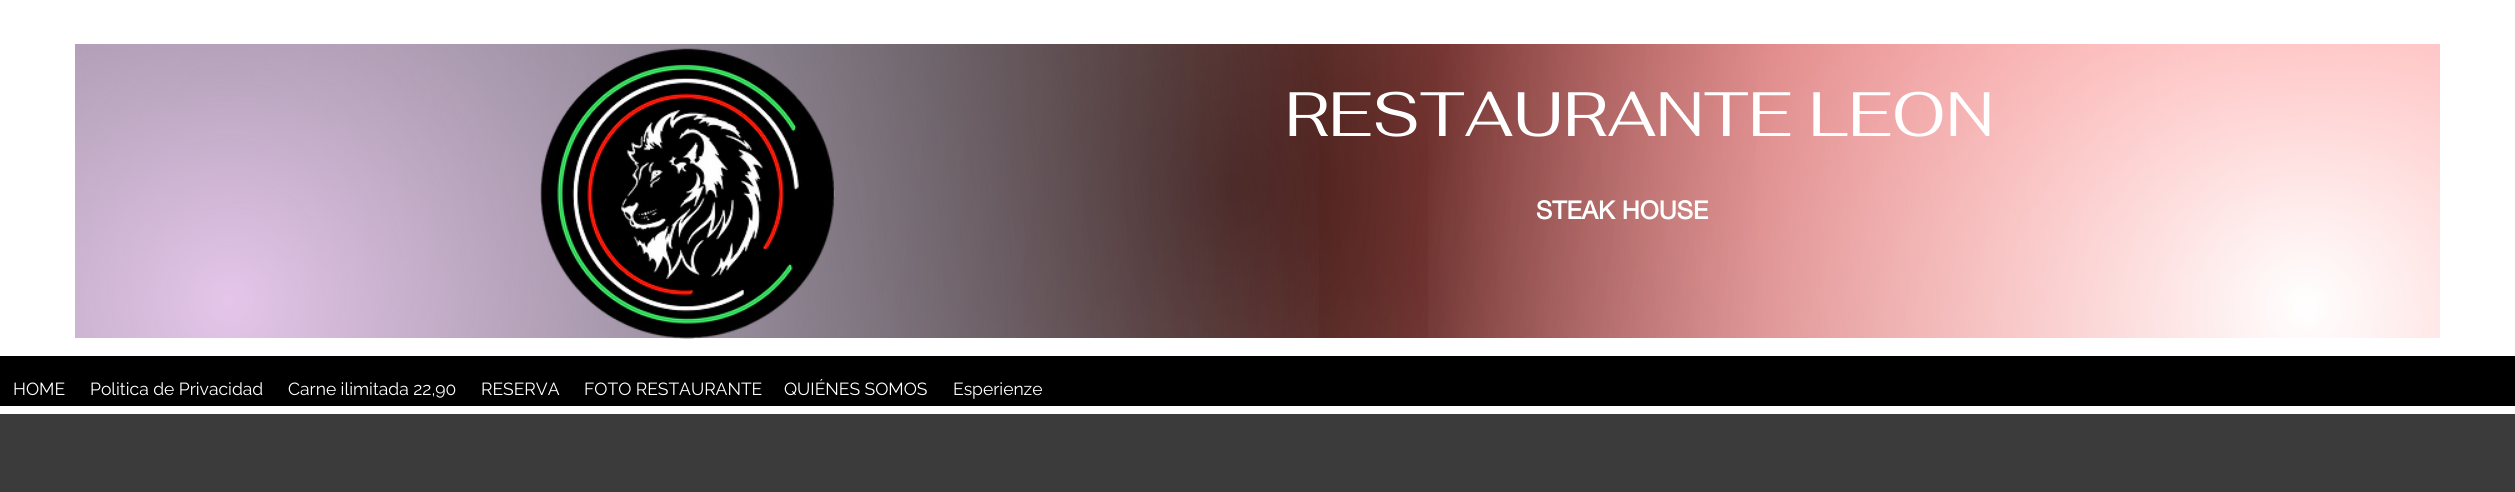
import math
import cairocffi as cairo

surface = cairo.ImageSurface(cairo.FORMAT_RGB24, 2515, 492)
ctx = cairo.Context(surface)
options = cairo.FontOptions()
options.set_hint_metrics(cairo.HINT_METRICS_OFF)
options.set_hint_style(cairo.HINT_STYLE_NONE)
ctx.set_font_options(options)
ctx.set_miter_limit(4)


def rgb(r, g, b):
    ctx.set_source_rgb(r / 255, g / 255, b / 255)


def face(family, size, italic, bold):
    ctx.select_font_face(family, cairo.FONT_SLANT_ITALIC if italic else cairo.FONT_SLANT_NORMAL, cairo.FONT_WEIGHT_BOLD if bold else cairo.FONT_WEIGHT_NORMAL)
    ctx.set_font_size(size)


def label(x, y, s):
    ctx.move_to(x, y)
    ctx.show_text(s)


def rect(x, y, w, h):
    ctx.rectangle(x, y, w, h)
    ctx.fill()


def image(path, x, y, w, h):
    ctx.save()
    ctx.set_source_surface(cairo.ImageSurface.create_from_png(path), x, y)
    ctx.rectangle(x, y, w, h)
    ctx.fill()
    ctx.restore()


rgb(59, 59, 59)
ctx.paint()
rgb(255, 255, 255)
rect(0, 0, 2515, 414)
gradient = cairo.RadialGradient(1232, 189, 0, 1232, 189, 1218)
gradient.add_color_stop_rgba(0, 0, 0, 0, 1)
gradient.add_color_stop_rgba(1, 1, 1, 1, 1)
ctx.set_source(gradient)
rect(75, 44, 2359, 294)
gradient = cairo.RadialGradient(2291, 77, 0, 2291, 77, 2231)
gradient.add_color_stop_rgba(0, 1, 0.251, 0.251, 1)
gradient.add_color_stop_rgba(0.7, 1, 0.251, 0.251, 0)
ctx.set_source(gradient)
rect(757, 44, 1683, 294)
gradient = cairo.RadialGradient(221, 81, 0, 221, 81, 2234)
gradient.add_color_stop_rgba(0, 0.082, 0.161, 0.106, 1)
gradient.add_color_stop_rgba(0.7, 0.082, 0.161, 0.106, 0)
ctx.set_source(gradient)
rect(75, 44, 1682, 294)
gradient = cairo.RadialGradient(229, 302, 0, 229, 302, 2226)
gradient.add_color_stop_rgba(0, 0.902, 0.78, 0.922, 0.99)
gradient.add_color_stop_rgba(0.5, 0.902, 0.78, 0.922, 0)
ctx.set_source(gradient)
rect(75, 44, 1244, 294)
image('image0.png', 540, 48, 295, 291)
gradient = cairo.RadialGradient(2306, 307, 0, 2306, 307, 2247)
gradient.add_color_stop_rgba(0, 1, 1, 1, 1)
gradient.add_color_stop_rgba(0.4, 1, 1, 1, 0)
ctx.set_source(gradient)
rect(1428, 44, 1012, 294)
face('Fahkwang', 62.5, 0, 0)
rgb(255, 255, 255)
label(1285, 136, 'RESTAURANTE LEON')
face('helvetica neue', 25, 0, 1)
label(1536, 219, 'STEAK HOUSE')
rgb(0, 0, 0)
rect(0, 356, 2515, 50)
face('Raleway', 17.5, 0, 0)
rgb(255, 255, 255)
label(13, 395, 'HOME')
label(90, 395, 'Politica de Privacidad')
label(288, 395, 'Carne ilimitada 22,90')
label(481, 395, 'RESERVA')
label(584, 395, 'FOTO RESTAURANTE')
label(784, 395, 'QUIÉNES SOMOS')
label(953, 395, 'Esperienze')
surface.write_to_png('render.png')
